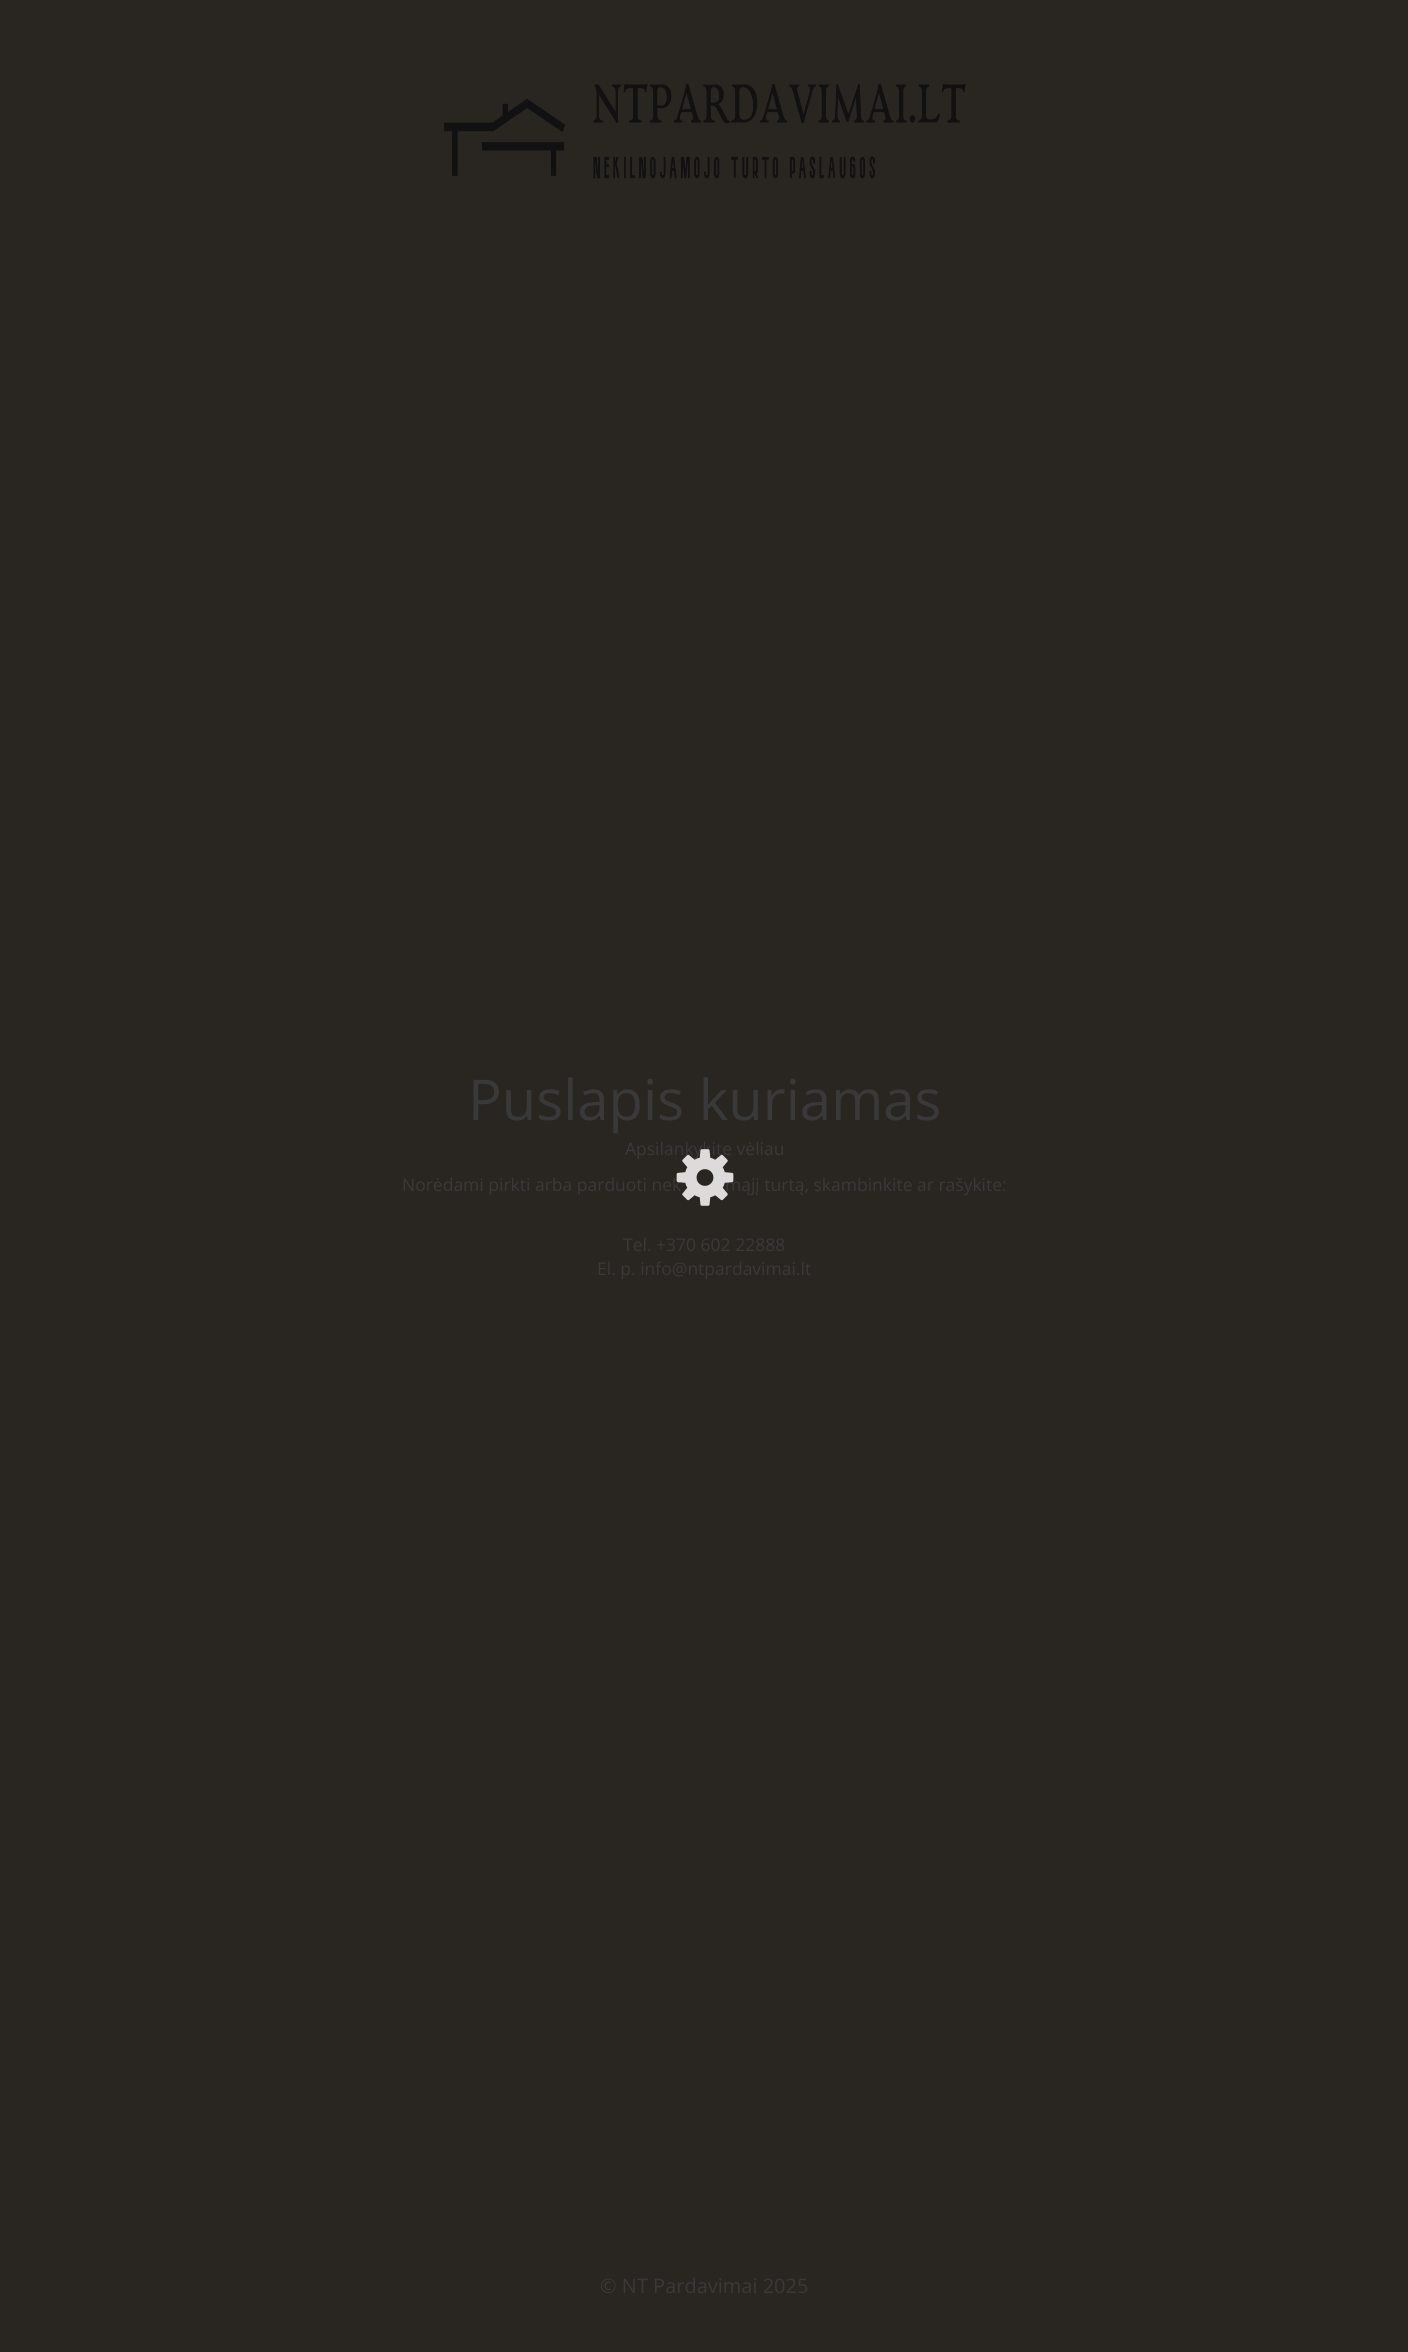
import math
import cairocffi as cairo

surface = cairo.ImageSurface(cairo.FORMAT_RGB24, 1408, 2352)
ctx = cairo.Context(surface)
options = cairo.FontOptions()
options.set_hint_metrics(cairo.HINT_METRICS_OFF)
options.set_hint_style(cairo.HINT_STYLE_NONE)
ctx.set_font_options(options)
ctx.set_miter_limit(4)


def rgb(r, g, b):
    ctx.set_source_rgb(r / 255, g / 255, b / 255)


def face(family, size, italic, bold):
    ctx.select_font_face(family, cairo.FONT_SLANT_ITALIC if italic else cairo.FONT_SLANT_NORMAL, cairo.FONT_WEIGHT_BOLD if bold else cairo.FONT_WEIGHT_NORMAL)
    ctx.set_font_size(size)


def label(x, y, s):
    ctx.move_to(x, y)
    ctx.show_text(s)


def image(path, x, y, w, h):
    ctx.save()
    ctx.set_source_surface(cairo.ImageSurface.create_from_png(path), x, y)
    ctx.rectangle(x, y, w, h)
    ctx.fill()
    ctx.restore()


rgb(41, 37, 32)
ctx.paint()
image('image0.png', 444, 83, 522, 96)
face('Open Sans', 56.25, 0, 0)
rgb(57, 57, 57)
label(468, 1120, 'Puslapis kuriamas')
face('Open Sans', 17.5, 0, 0)
label(625, 1155, 'Apsilankykite vėliau')
label(402, 1191, 'Norėdami pirkti arba parduoti nek')
label(725, 1191, 'mąjį turtą, skambinkite ar rašykite:')
label(623, 1251, 'Tel. +370 602 22888')
label(597, 1275, 'El. p. info@ntpardavimai.lt')
image('image1.png', 676, 1149, 58, 57)
face('Open Sans', 20, 0, 0)
label(600, 2293, '© NT Pardavimai 2025')
surface.write_to_png('render.png')
